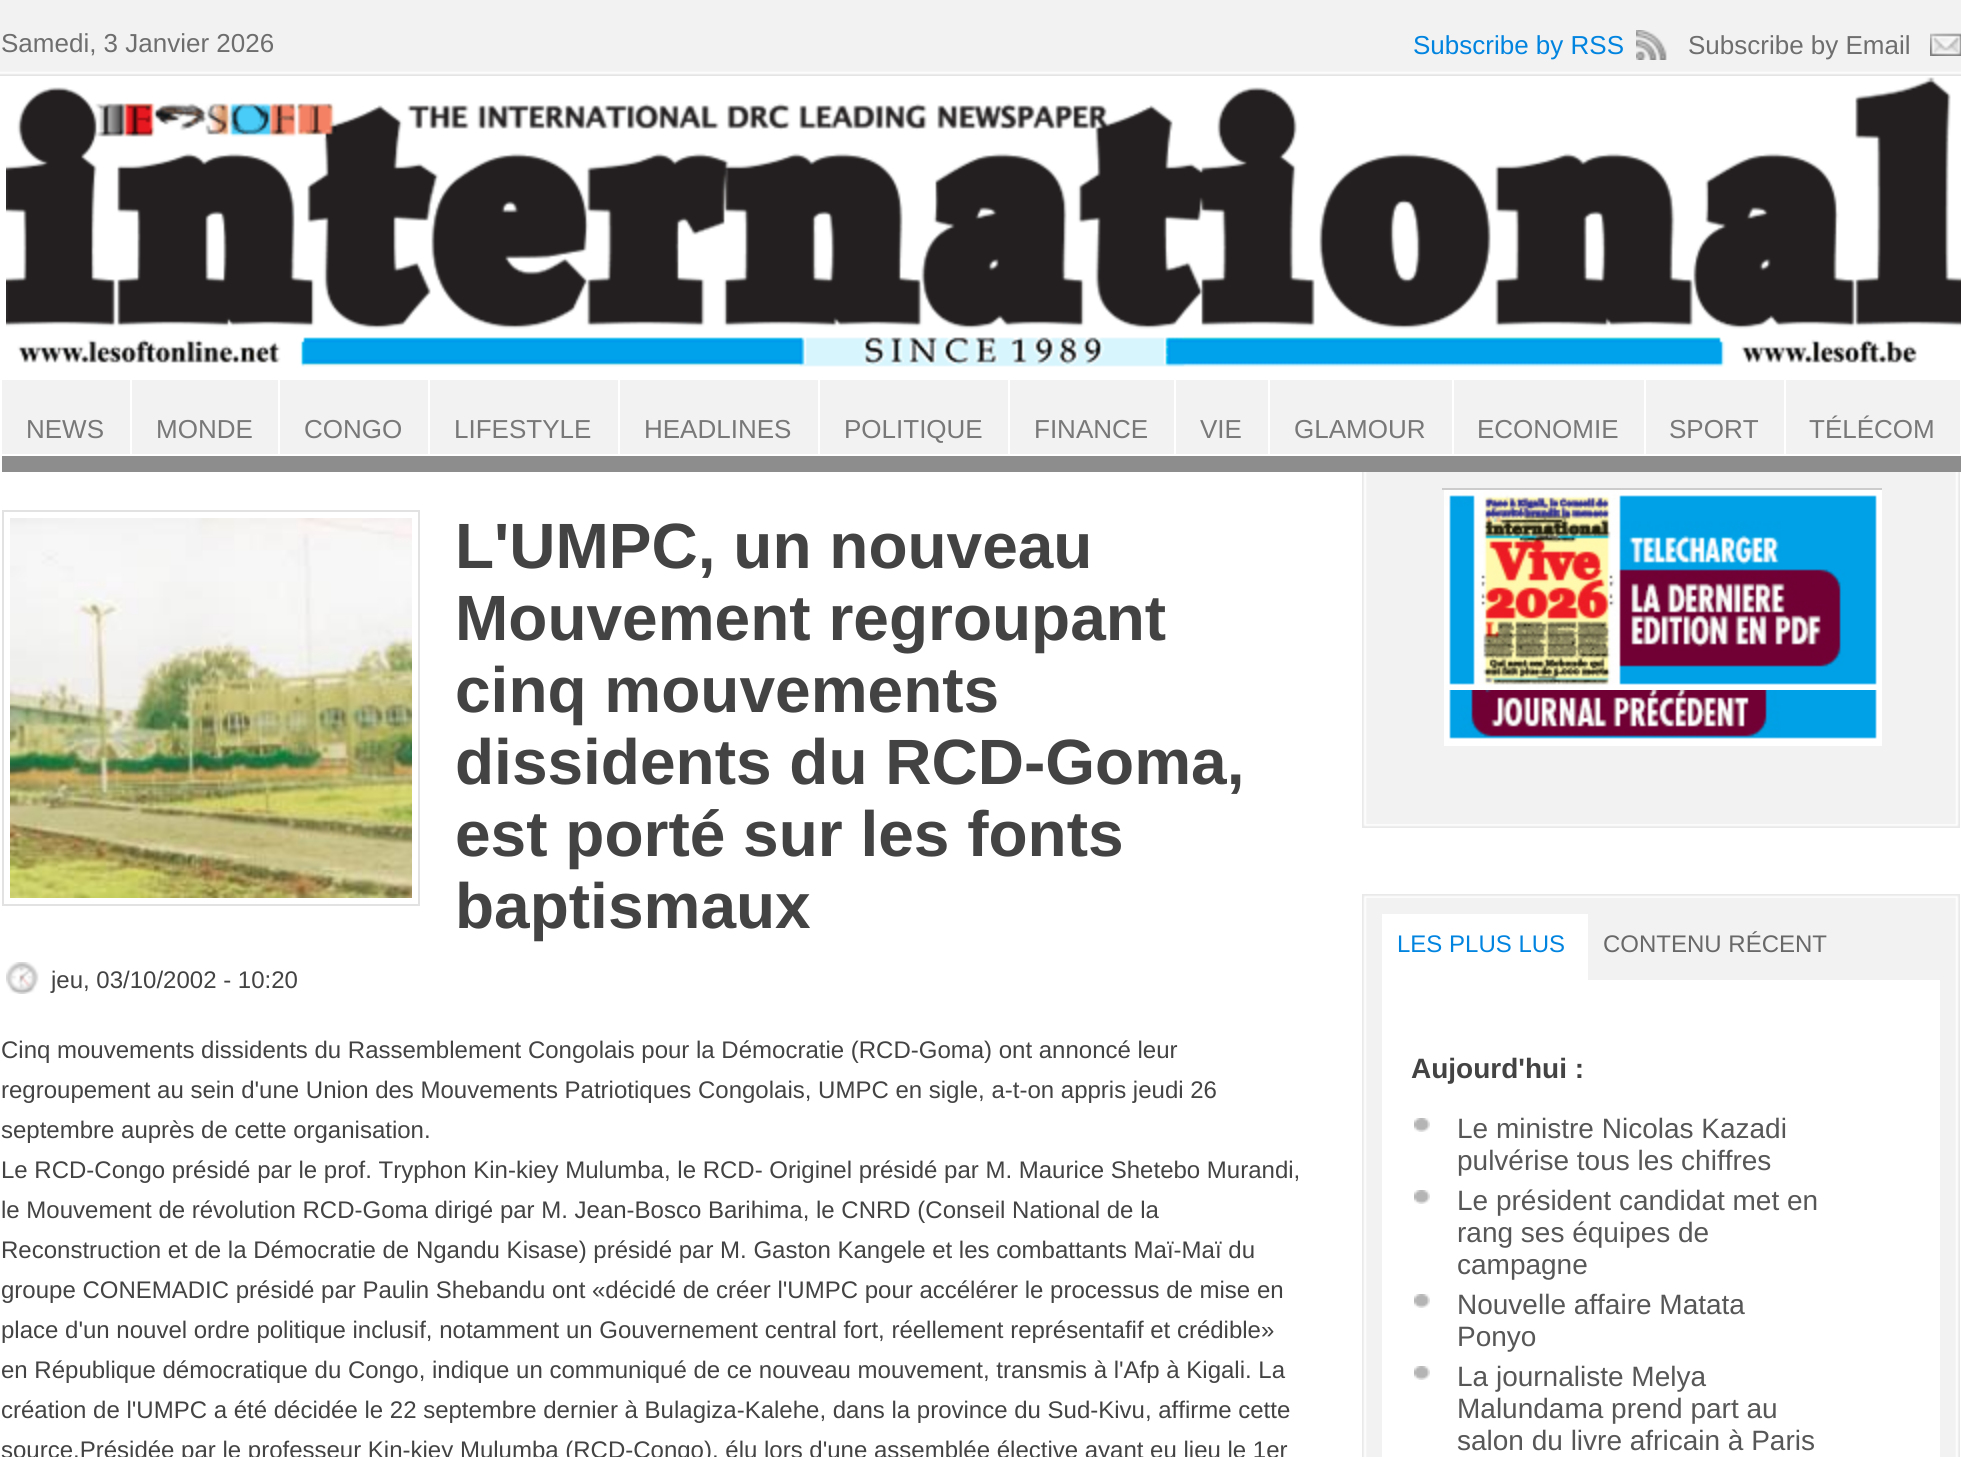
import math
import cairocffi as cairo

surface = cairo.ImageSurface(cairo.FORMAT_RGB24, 1961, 1457)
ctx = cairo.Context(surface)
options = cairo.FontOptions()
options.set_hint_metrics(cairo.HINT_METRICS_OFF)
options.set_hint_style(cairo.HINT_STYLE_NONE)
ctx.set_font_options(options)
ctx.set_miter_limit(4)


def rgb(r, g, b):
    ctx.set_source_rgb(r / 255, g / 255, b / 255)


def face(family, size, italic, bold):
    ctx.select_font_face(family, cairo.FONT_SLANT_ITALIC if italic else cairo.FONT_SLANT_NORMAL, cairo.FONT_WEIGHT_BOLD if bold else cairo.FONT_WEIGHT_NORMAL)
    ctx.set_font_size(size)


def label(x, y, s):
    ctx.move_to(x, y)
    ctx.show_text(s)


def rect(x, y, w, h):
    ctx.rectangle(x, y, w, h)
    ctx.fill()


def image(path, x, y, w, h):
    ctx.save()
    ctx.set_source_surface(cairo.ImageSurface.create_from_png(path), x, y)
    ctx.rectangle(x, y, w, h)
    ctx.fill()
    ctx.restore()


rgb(255, 255, 255)
ctx.paint()
image('image0.png', 0, 0, 1961, 76)
face('Liberation Sans', 26, 0, 0)
rgb(110, 110, 110)
label(1, 52, 'Samedi, 3 Janvier 2026')
rgb(1, 132, 224)
label(1413, 54, 'Subscribe by RSS')
image('image1.png', 1636, 30, 31, 30)
rgb(110, 110, 110)
label(1688, 54, 'Subscribe by Email')
image('image2.png', 1930, 33, 31, 23)
image('image3.png', 6, 77, 1955, 290)
rgb(141, 141, 141)
rect(2, 456, 1959, 16)
rgb(242, 242, 242)
rect(2, 380, 128, 74)
rgb(120, 120, 120)
label(26, 438, 'NEWS')
rgb(242, 242, 242)
rect(132, 380, 146, 74)
rgb(120, 120, 120)
label(156, 438, 'MONDE')
rgb(242, 242, 242)
rect(280, 380, 148, 74)
rgb(120, 120, 120)
label(304, 438, 'CONGO')
rgb(242, 242, 242)
rect(430, 380, 188, 74)
rgb(120, 120, 120)
label(454, 438, 'LIFESTYLE')
rgb(242, 242, 242)
rect(620, 380, 198, 74)
rgb(120, 120, 120)
label(644, 438, 'HEADLINES')
rgb(242, 242, 242)
rect(820, 380, 188, 74)
rgb(120, 120, 120)
label(844, 438, 'POLITIQUE')
rgb(242, 242, 242)
rect(1010, 380, 164, 74)
rgb(120, 120, 120)
label(1034, 438, 'FINANCE')
rgb(242, 242, 242)
rect(1176, 380, 92, 74)
rgb(120, 120, 120)
label(1200, 438, 'VIE')
rgb(242, 242, 242)
rect(1270, 380, 182, 74)
rgb(120, 120, 120)
label(1294, 438, 'GLAMOUR')
rgb(242, 242, 242)
rect(1454, 380, 190, 74)
rgb(120, 120, 120)
label(1477, 438, 'ECONOMIE')
rgb(242, 242, 242)
rect(1646, 380, 138, 74)
rgb(120, 120, 120)
label(1669, 438, 'SPORT')
rgb(242, 242, 242)
rect(1786, 380, 174, 74)
rgb(120, 120, 120)
label(1809, 438, 'TÉLÉCOM')
ctx.rectangle(3, 511, 416, 394)
rgb(226, 226, 226)
ctx.stroke()
image('image4.png', 10, 518, 402, 380)
face('Liberation Sans', 64, 0, 1)
rgb(67, 67, 67)
label(455, 568, 'L\'UMPC, un nouveau')
label(455, 640, 'Mouvement regroupant')
label(455, 712, 'cinq mouvements')
label(455, 784, 'dissidents du RCD-Goma,')
label(455, 856, 'est porté sur les fonts')
label(455, 928, 'baptismaux')
image('image5.png', 6, 962, 33, 32)
face('Liberation Sans', 24, 0, 0)
label(51, 988, 'jeu, 03/10/2002 - 10:20')
label(1, 1058, 'Cinq mouvements dissidents du Rassemblement Congolais pour la Démocratie (RCD-Goma) ont annoncé leur')
label(1, 1098, 'regroupement au sein d\'une Union des Mouvements Patriotiques Congolais, UMPC en sigle, a-t-on appris jeudi 26')
label(1, 1138, 'septembre auprès de cette organisation.')
label(1, 1178, 'Le RCD-Congo présidé par le prof. Tryphon Kin-kiey Mulumba, le RCD- Originel présidé par M. Maurice Shetebo Murandi,')
label(1, 1218, 'le Mouvement de révolution RCD-Goma dirigé par M. Jean-Bosco Barihima, le CNRD (Conseil National de la')
label(1, 1258, 'Reconstruction et de la Démocratie de Ngandu Kisase) présidé par M. Gaston Kangele et les combattants Maï-Maï du')
label(1, 1298, 'groupe CONEMADIC présidé par Paulin Shebandu ont «décidé de créer l\'UMPC pour accélérer le processus de mise en')
label(1, 1338, 'place d\'un nouvel ordre politique inclusif, notamment un Gouvernement central fort, réellement représentafif et crédible»')
label(1, 1378, 'en République démocratique du Congo, indique un communiqué de ce nouveau mouvement, transmis à l\'Afp à Kigali. La')
label(1, 1418, 'création de l\'UMPC a été décidée le 22 septembre dernier à Bulagiza-Kalehe, dans la province du Sud-Kivu, affirme cette')
label(1, 1458, 'source.Présidée par le professeur Kin-kiey Mulumba (RCD-Congo), élu lors d\'une assemblée élective ayant eu lieu le 1er')
image('image6.png', 1362, 472, 598, 356)
image('image7.png', 1363, 824, 596, 4)
rgb(204, 204, 204)
rect(1442, 488, 440, 2)
image('image8.png', 1444, 490, 438, 200)
image('image9.png', 1444, 690, 438, 56)
image('image10.png', 1362, 894, 598, 563)
image('image11.png', 1363, 894, 596, 4)
rgb(255, 255, 255)
rect(1382, 914, 206, 66)
rgb(1, 132, 224)
label(1397, 952, 'LES PLUS LUS')
rgb(105, 104, 104)
label(1603, 952, 'CONTENU RÉCENT')
rgb(255, 255, 255)
rect(1382, 980, 558, 477)
face('Liberation Sans', 28, 0, 1)
rgb(67, 67, 67)
label(1411, 1078, 'Aujourd\'hui :')
image('image12.png', 1414, 1118, 16, 14)
face('Liberation Sans', 28, 0, 0)
rgb(87, 87, 87)
label(1457, 1138, 'Le ministre Nicolas Kazadi')
label(1457, 1170, 'pulvérise tous les chiffres')
image('image12.png', 1414, 1190, 16, 14)
label(1457, 1210, 'Le président candidat met en')
label(1457, 1242, 'rang ses équipes de')
label(1457, 1274, 'campagne')
image('image12.png', 1414, 1294, 16, 14)
label(1457, 1314, 'Nouvelle affaire Matata')
label(1457, 1346, 'Ponyo')
image('image12.png', 1414, 1366, 16, 14)
label(1457, 1386, 'La journaliste Melya')
label(1457, 1418, 'Malundama prend part au')
label(1457, 1450, 'salon du livre africain à Paris')
surface.write_to_png('render.png')
